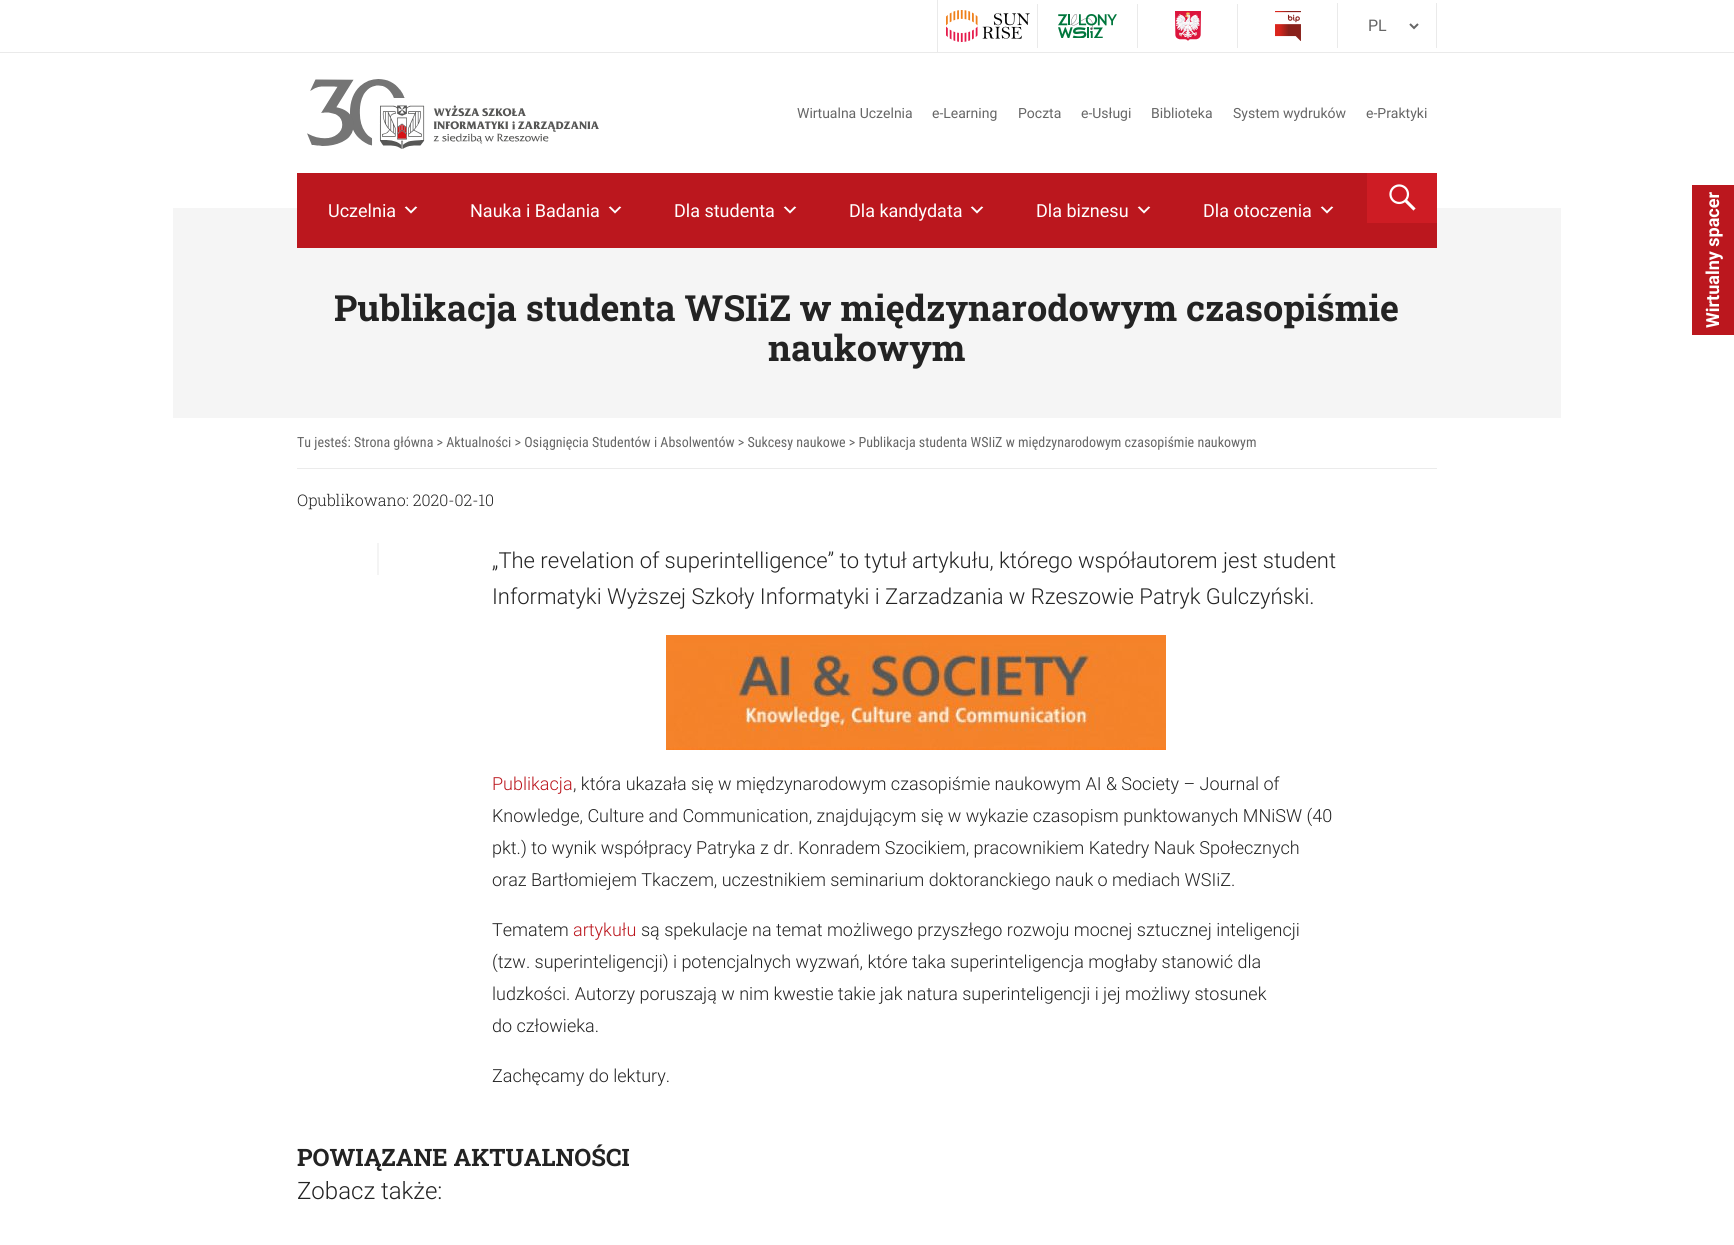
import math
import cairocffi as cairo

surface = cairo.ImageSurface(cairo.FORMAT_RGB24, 1734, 1245)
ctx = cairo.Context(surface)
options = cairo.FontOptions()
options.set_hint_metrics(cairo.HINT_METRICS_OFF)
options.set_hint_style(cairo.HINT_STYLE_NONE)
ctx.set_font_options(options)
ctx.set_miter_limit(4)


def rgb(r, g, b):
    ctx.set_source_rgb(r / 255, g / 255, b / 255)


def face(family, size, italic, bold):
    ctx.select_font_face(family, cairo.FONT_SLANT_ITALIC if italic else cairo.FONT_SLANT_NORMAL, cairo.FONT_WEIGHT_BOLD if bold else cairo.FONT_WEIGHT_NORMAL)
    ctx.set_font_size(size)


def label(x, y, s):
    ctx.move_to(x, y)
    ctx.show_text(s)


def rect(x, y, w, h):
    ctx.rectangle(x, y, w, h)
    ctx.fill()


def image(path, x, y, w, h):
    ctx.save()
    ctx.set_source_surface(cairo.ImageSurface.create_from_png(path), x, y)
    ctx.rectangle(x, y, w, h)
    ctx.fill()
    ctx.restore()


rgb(255, 255, 255)
ctx.paint()
rgb(234, 234, 234)
rect(0, 52, 1734, 1)
rect(937, 0, 1, 52)
image('image0.png', 946, 10, 84, 32)
rect(1037, 4, 1, 44)
image('image1.png', 1058, 14, 59, 24)
rect(1137, 4, 1, 44)
image('image2.png', 1175, 11, 26, 30)
rect(1237, 4, 1, 44)
image('image3.png', 1275, 11, 26, 30)
rect(1436, 3, 1, 45)
rect(1337, 3, 1, 45)
ctx.new_path()
ctx.move_to(1410, 24)
ctx.line_to(1414, 28)
ctx.line_to(1418, 24)
rgb(102, 102, 102)
ctx.stroke()
face('Roboto', 16, 0, 0)
label(1368, 31, 'PL')
image('image4.png', 307, 79, 292, 70)
face('Roboto', 14, 0, 0)
label(797, 118, 'Wirtualna Uczelnia')
label(932, 118, 'e-Learning')
label(1018, 118, 'Poczta')
label(1081, 118, 'e-Usługi')
label(1151, 118, 'Biblioteka')
label(1233, 118, 'System wydruków')
label(1366, 118, 'e-Praktyki')
rgb(245, 245, 245)
rect(173, 208, 1388, 210)
rgb(187, 23, 30)
rect(297, 173, 1140, 75)
face('Roboto', 18, 0, 0)
rgb(255, 255, 255)
label(328, 217, 'Uczelnia')
image('image5.png', 404, 206, 14, 8)
label(470, 217, 'Nauka i Badania')
image('image5.png', 608, 206, 14, 8)
label(674, 217, 'Dla studenta')
image('image5.png', 783, 206, 14, 8)
label(849, 217, 'Dla kandydata')
image('image5.png', 970, 206, 14, 8)
label(1036, 217, 'Dla biznesu')
image('image5.png', 1137, 206, 14, 8)
label(1203, 217, 'Dla otoczenia')
image('image5.png', 1320, 206, 14, 8)
rgb(206, 28, 36)
rect(1367, 173, 70, 50)
image('image6.png', 1389, 184, 27, 27)
rgb(187, 23, 30)
rect(1692, 185, 42, 150)
face('Roboto', 18, 0, 1)
rgb(255, 255, 255)
ctx.save()
ctx.translate(1719, 328)
ctx.rotate(-90 * math.pi / 180)
label(0, 0, 'Wirtualny spacer')
ctx.restore()
face('Roboto Slab', 36, 0, 1)
rgb(35, 35, 35)
label(334, 321, 'Publikacja studenta WSIiZ w międzynarodowym czasopiśmie')
label(768, 361, 'naukowym')
rgb(235, 235, 235)
rect(297, 468, 1140, 1)
face('Roboto Condensed', 14, 0, 0)
rgb(102, 102, 102)
label(297, 447, 'Tu jesteś: Strona główna > Aktualności > Osiągnięcia Studentów i Absolwentów > Sukcesy naukowe > Publikacja studenta WSIiZ w międzynarodowym czasopiśmie naukowym')
face('Roboto Slab Light', 16, 0, 0)
rgb(35, 35, 35)
label(297, 506, 'Opublikowano: 2020-02-10')
rgb(244, 244, 244)
rect(377, 543, 2, 32)
face('Roboto Light', 22, 0, 0)
rgb(35, 35, 35)
label(492, 568, '„The revelation of superintelligence” to tytuł artykułu, którego współautorem jest student')
label(492, 604, 'Informatyki Wyższej Szkoły Informatyki i Zarzadzania w Rzeszowie Patryk Gulczyński.')
image('image7.png', 666, 635, 500, 115)
face('Roboto Light', 18, 0, 0)
rgb(187, 23, 30)
label(492, 790, 'Publikacja')
rgb(35, 35, 35)
label(573, 790, ', która ukazała się w międzynarodowym czasopiśmie naukowym AI & Society – Journal of')
label(492, 822, 'Knowledge, Culture and Communication, znajdującym się w wykazie czasopism punktowanych MNiSW (40')
label(492, 854, 'pkt.) to wynik współpracy Patryka z dr. Konradem Szocikiem, pracownikiem Katedry Nauk Społecznych')
label(492, 886, 'oraz Bartłomiejem Tkaczem, uczestnikiem seminarium doktoranckiego nauk o mediach WSIiZ.')
label(492, 936, 'Tematem')
rgb(187, 23, 30)
label(573, 936, 'artykułu')
rgb(35, 35, 35)
label(641, 936, 'są spekulacje na temat możliwego przyszłego rozwoju mocnej sztucznej inteligencji')
label(492, 968, '(tzw. superinteligencji) i potencjalnych wyzwań, które taka superinteligencja mogłaby stanowić dla')
label(492, 1000, 'ludzkości. Autorzy poruszają w nim kwestie takie jak natura superinteligencji i jej możliwy stosunek')
label(492, 1032, 'do człowieka.')
label(492, 1082, 'Zachęcamy do lektury.')
face('Roboto Slab', 24, 0, 1)
label(297, 1166, 'POWIĄZANE AKTUALNOŚCI')
face('Roboto Light', 24, 0, 0)
label(297, 1199, 'Zobacz także:')
surface.write_to_png('render.png')
